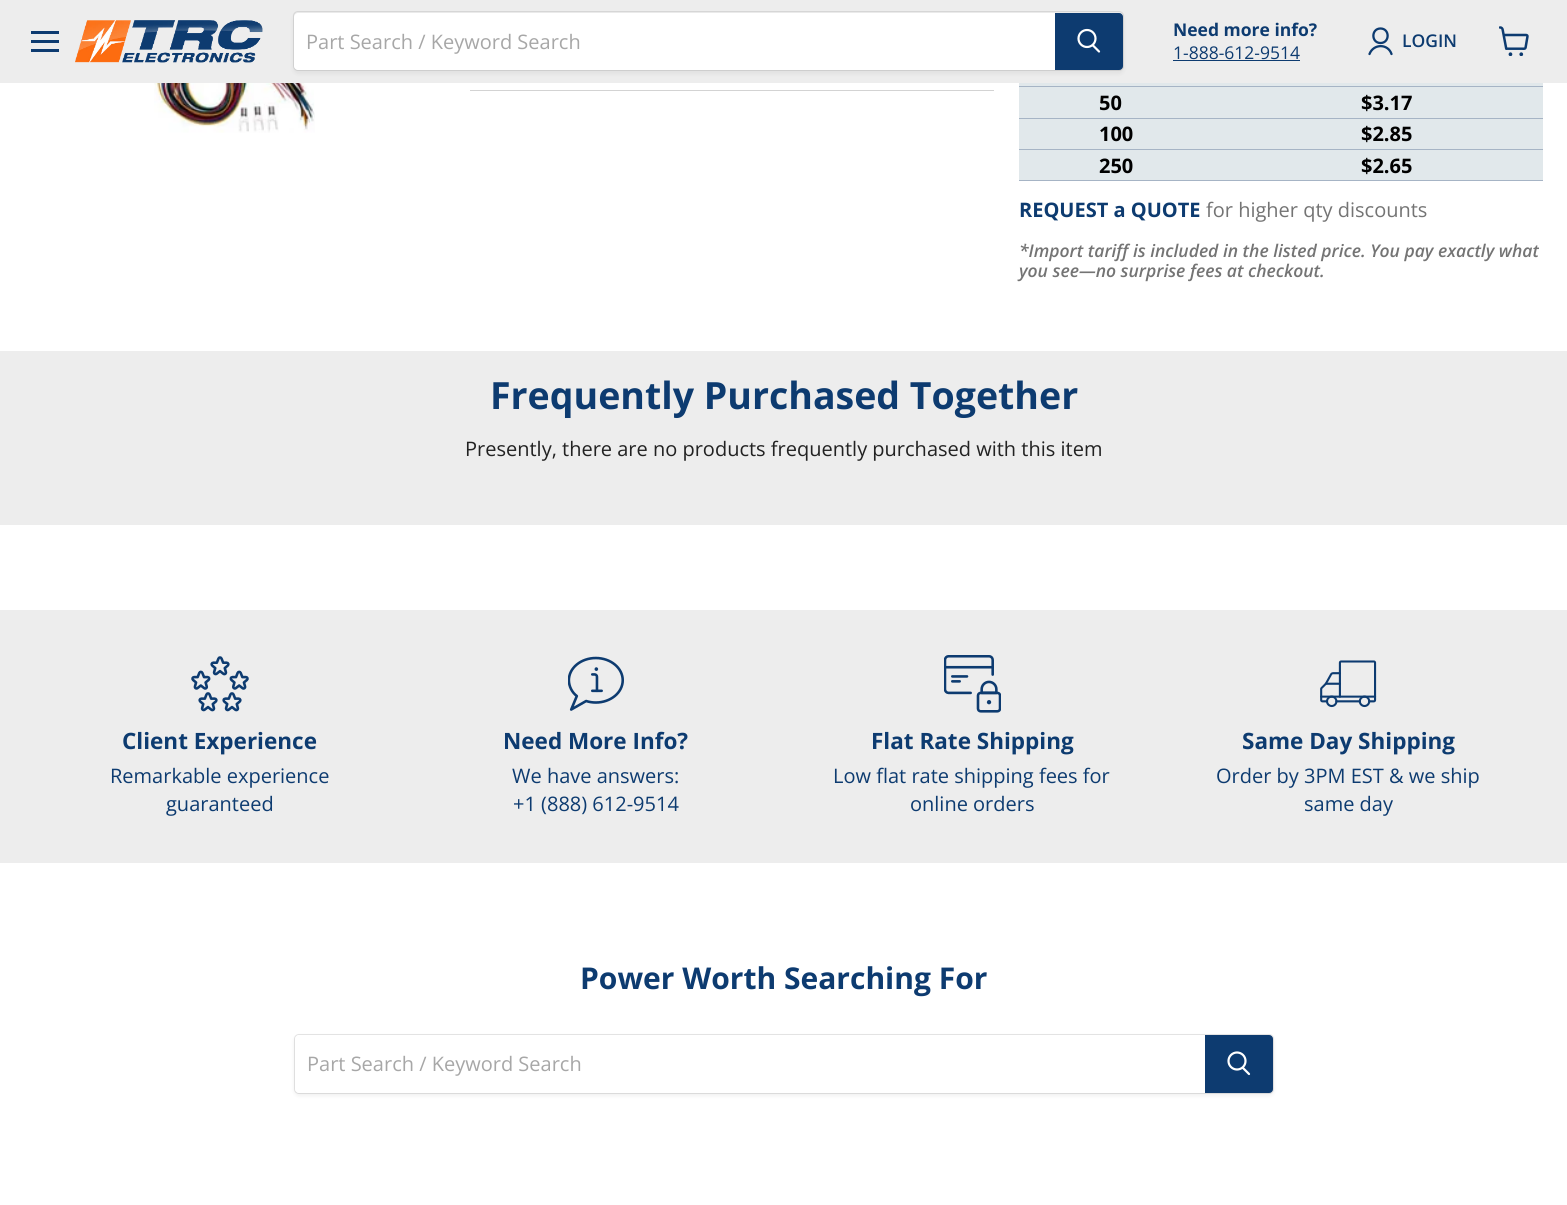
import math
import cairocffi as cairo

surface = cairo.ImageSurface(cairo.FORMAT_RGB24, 1567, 1205)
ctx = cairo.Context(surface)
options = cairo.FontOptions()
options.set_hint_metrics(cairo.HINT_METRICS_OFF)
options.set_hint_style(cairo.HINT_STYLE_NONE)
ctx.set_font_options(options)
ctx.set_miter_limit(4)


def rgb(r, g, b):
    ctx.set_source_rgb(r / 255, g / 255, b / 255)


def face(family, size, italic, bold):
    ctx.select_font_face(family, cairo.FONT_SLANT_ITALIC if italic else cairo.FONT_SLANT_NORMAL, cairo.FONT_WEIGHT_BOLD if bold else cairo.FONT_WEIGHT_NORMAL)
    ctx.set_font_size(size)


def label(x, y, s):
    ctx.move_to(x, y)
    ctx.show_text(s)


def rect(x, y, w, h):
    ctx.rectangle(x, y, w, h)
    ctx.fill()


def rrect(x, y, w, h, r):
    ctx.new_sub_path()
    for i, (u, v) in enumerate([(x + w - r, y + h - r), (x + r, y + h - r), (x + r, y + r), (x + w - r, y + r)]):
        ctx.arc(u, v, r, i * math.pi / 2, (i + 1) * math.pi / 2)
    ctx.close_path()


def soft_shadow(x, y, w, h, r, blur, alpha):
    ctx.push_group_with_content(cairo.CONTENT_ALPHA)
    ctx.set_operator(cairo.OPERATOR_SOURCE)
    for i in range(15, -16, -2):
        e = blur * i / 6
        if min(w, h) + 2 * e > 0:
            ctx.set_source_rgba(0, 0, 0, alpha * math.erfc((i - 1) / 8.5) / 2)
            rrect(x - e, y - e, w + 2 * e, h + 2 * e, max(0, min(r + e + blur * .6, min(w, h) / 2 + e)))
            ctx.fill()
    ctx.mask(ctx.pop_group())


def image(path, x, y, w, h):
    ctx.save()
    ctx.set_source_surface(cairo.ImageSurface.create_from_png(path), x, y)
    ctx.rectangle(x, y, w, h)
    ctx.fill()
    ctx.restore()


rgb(255, 255, 255)
ctx.paint()
rgb(237, 237, 237)
rect(0, 0, 1567, 83)
rgb(13, 59, 112)
rect(31, 31, 28, 3)
rect(31, 40, 28, 3)
rect(31, 49, 28, 3)
image('image0.png', 75, 20, 188, 43)
rgb(128, 128, 128)
soft_shadow(293, 14, 831, 60, 5, 2, 0.11)
rrect(293.5, 11.5, 830, 59, 4.5)
ctx.set_source_rgba(0.502, 0.502, 0.502, 0.2)
ctx.set_line_width(1)
ctx.stroke()
rgb(255, 255, 255)
ctx.new_path()
ctx.move_to(298, 13)
ctx.line_to(1055, 13)
ctx.line_to(1055, 70)
ctx.line_to(298, 70)
ctx.curve_to(296, 70, 294, 68, 294, 66)
ctx.line_to(294, 17)
ctx.curve_to(294, 15, 296, 13, 298, 13)
ctx.close_path()
ctx.fill()
face('Open Sans', 20, 0, 0)
rgb(167, 167, 167)
label(306, 49, 'Part Search / Keyword Search')
rgb(13, 59, 112)
ctx.new_path()
ctx.move_to(1055.5, 13.5)
ctx.line_to(1119, 13.5)
ctx.curve_to(1121, 13.5, 1122.5, 15, 1122.5, 17)
ctx.line_to(1122.5, 66)
ctx.curve_to(1122.5, 68, 1121, 69.5, 1119, 69.5)
ctx.line_to(1055.5, 69.5)
ctx.close_path()
ctx.fill_preserve()
ctx.stroke()
ctx.new_path()
ctx.move_to(1099, 51.5)
ctx.line_to(1093, 45.5)
rgb(255, 255, 255)
ctx.set_line_width(2.2)
ctx.set_line_cap(cairo.LINE_CAP_ROUND)
ctx.stroke()
ctx.arc(1087, 38.5, 8.5, 0, 2 * math.pi)
ctx.set_line_cap(cairo.LINE_CAP_BUTT)
ctx.stroke()
face('Open Sans', 17.5, 0, 1)
rgb(13, 59, 112)
label(1173, 36, 'Need more info?')
face('Open Sans', 17.5, 0, 0)
label(1173, 59, '1-888-612-9514')
rect(1173, 60, 127, 1)
ctx.new_path()
ctx.move_to(1380.5, 43)
ctx.curve_to(1390, 43, 1390, 28.5, 1380.5, 28.5)
ctx.curve_to(1371, 28.5, 1371, 43, 1380.5, 43)
ctx.close_path()
ctx.move_to(1391.5, 54)
ctx.curve_to(1388, 43.5, 1373.5, 43.5, 1369.5, 54)
ctx.set_line_width(2.3)
ctx.set_line_cap(cairo.LINE_CAP_ROUND)
ctx.set_line_join(cairo.LINE_JOIN_ROUND)
ctx.stroke()
face('Open Sans SemiBold', 17.5, 0, 0)
label(1402, 47, 'LOGIN')
image('image1.png', 1499, 26, 30, 30)
image('image2.png', 154, 83, 161, 50)
rgb(211, 211, 211)
rect(470, 90, 524, 1)
rgb(225, 232, 235)
rect(1019, 83, 524, 35)
rgb(166, 180, 197)
rect(1019, 86, 524, 1)
rect(1019, 118, 524, 1)
face('Open Sans', 20, 0, 1)
rgb(0, 0, 0)
label(1099, 110, '50')
label(1361, 110, '$3.17')
rgb(225, 232, 235)
rect(1019, 119, 524, 30)
rgb(166, 180, 197)
rect(1019, 149, 524, 1)
rgb(0, 0, 0)
label(1099, 141, '100')
label(1361, 141, '$2.85')
rgb(225, 232, 235)
rect(1019, 150, 524, 30)
rgb(166, 180, 197)
rect(1019, 180, 524, 1)
rgb(0, 0, 0)
label(1099, 173, '250')
label(1361, 173, '$2.65')
rgb(13, 59, 112)
label(1019, 217, 'REQUEST a QUOTE')
face('Open Sans', 20, 0, 0)
rgb(116, 116, 116)
label(1206, 217, 'for higher qty discounts')
face('Open Sans SemiBold', 17.5, 1, 0)
label(1019, 257, '*Import tariff is included in the listed price. You pay exactly what')
label(1019, 277, 'you see—no surprise fees at checkout.')
rgb(237, 237, 237)
rect(0, 351, 1567, 174)
face('Open Sans', 37.5, 0, 1)
rgb(13, 59, 112)
label(490, 409, 'Frequently Purchased Together')
face('Open Sans', 20, 0, 0)
rgb(34, 34, 34)
label(465, 456, 'Presently, there are no products frequently purchased with this item')
rgb(237, 237, 237)
rect(0, 610, 1567, 253)
image('image3.png', 191, 656, 58, 56)
face('Open Sans', 22.5, 0, 1)
rgb(13, 59, 112)
label(122, 749, 'Client Experience')
face('Open Sans', 20, 0, 0)
label(110, 783, 'Remarkable experience')
label(166, 811, 'guaranteed')
image('image4.png', 568, 656, 56, 55)
face('Open Sans', 22.5, 0, 1)
label(503, 749, 'Need More Info?')
face('Open Sans', 20, 0, 0)
label(512, 783, 'We have answers:')
label(513, 811, '+1 (888) 612-9514')
image('image5.png', 944, 655, 57, 58)
face('Open Sans', 22.5, 0, 1)
label(871, 749, 'Flat Rate Shipping')
face('Open Sans', 20, 0, 0)
label(833, 783, 'Low flat rate shipping fees for')
label(910, 811, 'online orders')
image('image6.png', 1320, 660, 57, 48)
face('Open Sans', 22.5, 0, 1)
label(1242, 749, 'Same Day Shipping')
face('Open Sans', 20, 0, 0)
label(1216, 783, 'Order by 3PM EST & we ship')
label(1304, 811, 'same day')
face('Open Sans', 30, 0, 1)
label(580, 989, 'Power Worth Searching For')
rgb(128, 128, 128)
soft_shadow(294, 1036, 980, 60, 5, 2, 0.11)
rrect(294.5, 1034.5, 979, 59, 4.5)
ctx.set_source_rgba(0.502, 0.502, 0.502, 0.2)
ctx.set_line_width(1)
ctx.set_line_cap(cairo.LINE_CAP_BUTT)
ctx.set_line_join(cairo.LINE_JOIN_MITER)
ctx.stroke()
rgb(255, 255, 255)
ctx.new_path()
ctx.move_to(299, 1035)
ctx.line_to(1205, 1035)
ctx.line_to(1205, 1093)
ctx.line_to(299, 1093)
ctx.curve_to(297, 1093, 295, 1091, 295, 1089)
ctx.line_to(295, 1039)
ctx.curve_to(295, 1037, 297, 1035, 299, 1035)
ctx.close_path()
ctx.fill()
face('Open Sans', 20, 0, 0)
rgb(167, 167, 167)
label(307, 1071, 'Part Search / Keyword Search')
rgb(13, 59, 112)
ctx.new_path()
ctx.move_to(1205.5, 1035.5)
ctx.line_to(1269, 1035.5)
ctx.curve_to(1271, 1035.5, 1272.5, 1037, 1272.5, 1039)
ctx.line_to(1272.5, 1089)
ctx.curve_to(1272.5, 1091, 1271, 1092.5, 1269, 1092.5)
ctx.line_to(1205.5, 1092.5)
ctx.close_path()
ctx.fill_preserve()
ctx.stroke()
ctx.new_path()
ctx.move_to(1249, 1074)
ctx.line_to(1243, 1068)
rgb(255, 255, 255)
ctx.set_line_width(2.2)
ctx.set_line_cap(cairo.LINE_CAP_ROUND)
ctx.stroke()
ctx.arc(1237, 1061, 8.5, 0, 2 * math.pi)
ctx.set_line_cap(cairo.LINE_CAP_BUTT)
ctx.stroke()
surface.write_to_png('render.png')
